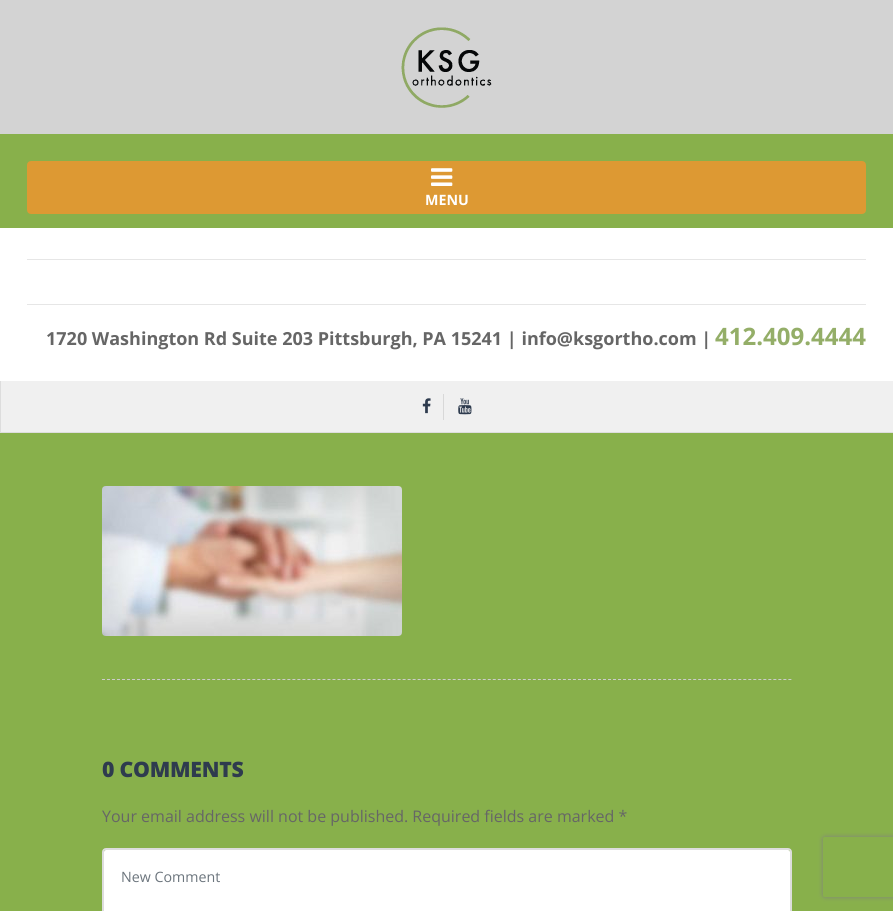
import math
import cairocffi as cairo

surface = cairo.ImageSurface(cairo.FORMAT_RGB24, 893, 911)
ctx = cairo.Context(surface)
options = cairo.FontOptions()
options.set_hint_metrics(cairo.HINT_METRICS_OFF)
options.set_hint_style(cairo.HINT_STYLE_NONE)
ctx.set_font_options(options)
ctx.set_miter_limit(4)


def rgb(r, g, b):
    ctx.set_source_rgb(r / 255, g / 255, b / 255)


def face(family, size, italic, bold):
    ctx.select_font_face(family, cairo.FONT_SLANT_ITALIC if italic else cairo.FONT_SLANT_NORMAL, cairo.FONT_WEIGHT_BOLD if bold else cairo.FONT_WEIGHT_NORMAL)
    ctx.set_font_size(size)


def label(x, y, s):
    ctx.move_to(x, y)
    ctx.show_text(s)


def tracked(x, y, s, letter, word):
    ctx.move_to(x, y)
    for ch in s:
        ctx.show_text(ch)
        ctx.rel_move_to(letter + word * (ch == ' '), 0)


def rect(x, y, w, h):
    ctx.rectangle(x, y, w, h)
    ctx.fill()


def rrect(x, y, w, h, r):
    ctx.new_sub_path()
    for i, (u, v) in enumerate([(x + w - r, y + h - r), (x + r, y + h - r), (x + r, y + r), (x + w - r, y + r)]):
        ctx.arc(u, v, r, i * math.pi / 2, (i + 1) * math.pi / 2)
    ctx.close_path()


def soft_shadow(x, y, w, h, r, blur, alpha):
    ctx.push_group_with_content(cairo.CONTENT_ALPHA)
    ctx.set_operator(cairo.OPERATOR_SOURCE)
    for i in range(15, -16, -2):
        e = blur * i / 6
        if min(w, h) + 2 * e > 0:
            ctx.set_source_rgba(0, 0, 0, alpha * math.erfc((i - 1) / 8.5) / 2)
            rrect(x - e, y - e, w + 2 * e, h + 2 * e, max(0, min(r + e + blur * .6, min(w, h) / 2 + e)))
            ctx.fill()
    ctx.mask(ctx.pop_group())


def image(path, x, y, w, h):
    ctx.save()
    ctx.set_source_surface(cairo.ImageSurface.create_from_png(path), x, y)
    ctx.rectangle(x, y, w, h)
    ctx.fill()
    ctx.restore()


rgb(136, 176, 75)
ctx.paint()
rgb(221, 221, 221)
rect(0, 432, 893, 1)
rgb(211, 211, 211)
rect(0, 0, 893, 134)
image('image0.png', 401, 27, 91, 81)
rgb(221, 153, 51)
rrect(28, 162, 837, 51, 3)
ctx.fill_preserve()
ctx.stroke()
image('image1.png', 431, 168, 22, 18)
face('Open Sans', 14.25, 0, 1)
rgb(255, 255, 255)
label(425, 205, 'MENU')
rect(0, 228, 893, 153)
rgb(230, 230, 230)
rect(27, 259, 839, 1)
rect(27, 304, 839, 1)
face('Open Sans', 18, 0, 1)
rgb(102, 102, 102)
label(46, 345, '1720 Washington Rd Suite 203 Pittsburgh, PA 15241 | info@ksgortho.com |')
face('Open Sans', 24, 0, 1)
rgb(148, 174, 104)
label(715, 345, '412.409.4444')
rgb(240, 240, 240)
rect(1, 381, 892, 51)
rgb(221, 221, 221)
rect(0, 381, 1, 51)
image('image2.png', 422, 398, 9, 16)
rgb(216, 216, 216)
rect(443, 394, 1, 26)
image('image3.png', 458, 398, 14, 17)
image('image4.png', 102, 486, 300, 150)
ctx.new_path()
ctx.move_to(102, 679.5)
ctx.line_to(792, 679.5)
rgb(204, 204, 204)
ctx.set_line_width(1)
ctx.set_dash([3, 2.01])
ctx.stroke()
face('Open Sans ExtraBold', 21.25, 0, 0)
rgb(46, 59, 78)
tracked(102, 777, '0 COMMENTS', -0.25, 0)
face('Open Sans', 16, 0, 0)
rgb(102, 102, 102)
label(102, 822, 'Your email address will not be published. Required fields are marked *')
rgb(255, 255, 255)
rrect(104, 850, 686, 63, 2)
ctx.fill()
rrect(103, 849, 688, 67, 3)
rgb(221, 221, 221)
ctx.set_line_width(2)
ctx.set_dash([])
ctx.stroke()
face('Open Sans', 14.25, 0, 0)
rgb(108, 117, 125)
label(121, 882, 'New Comment')
ctx.save()
ctx.set_fill_rule(cairo.FILL_RULE_EVEN_ODD)
ctx.new_path()
ctx.move_to(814, 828)
ctx.line_to(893, 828)
ctx.line_to(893, 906)
ctx.line_to(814, 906)
ctx.close_path()
ctx.move_to(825, 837)
ctx.line_to(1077, 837)
ctx.curve_to(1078, 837, 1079, 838, 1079, 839)
ctx.line_to(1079, 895)
ctx.curve_to(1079, 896, 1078, 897, 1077, 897)
ctx.line_to(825, 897)
ctx.curve_to(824, 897, 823, 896, 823, 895)
ctx.line_to(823, 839)
ctx.curve_to(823, 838, 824, 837, 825, 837)
ctx.close_path()
ctx.clip()
rgb(128, 128, 128)
soft_shadow(823, 837, 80, 60, 2, 2.5, 1)
ctx.restore()
surface.write_to_png('render.png')
